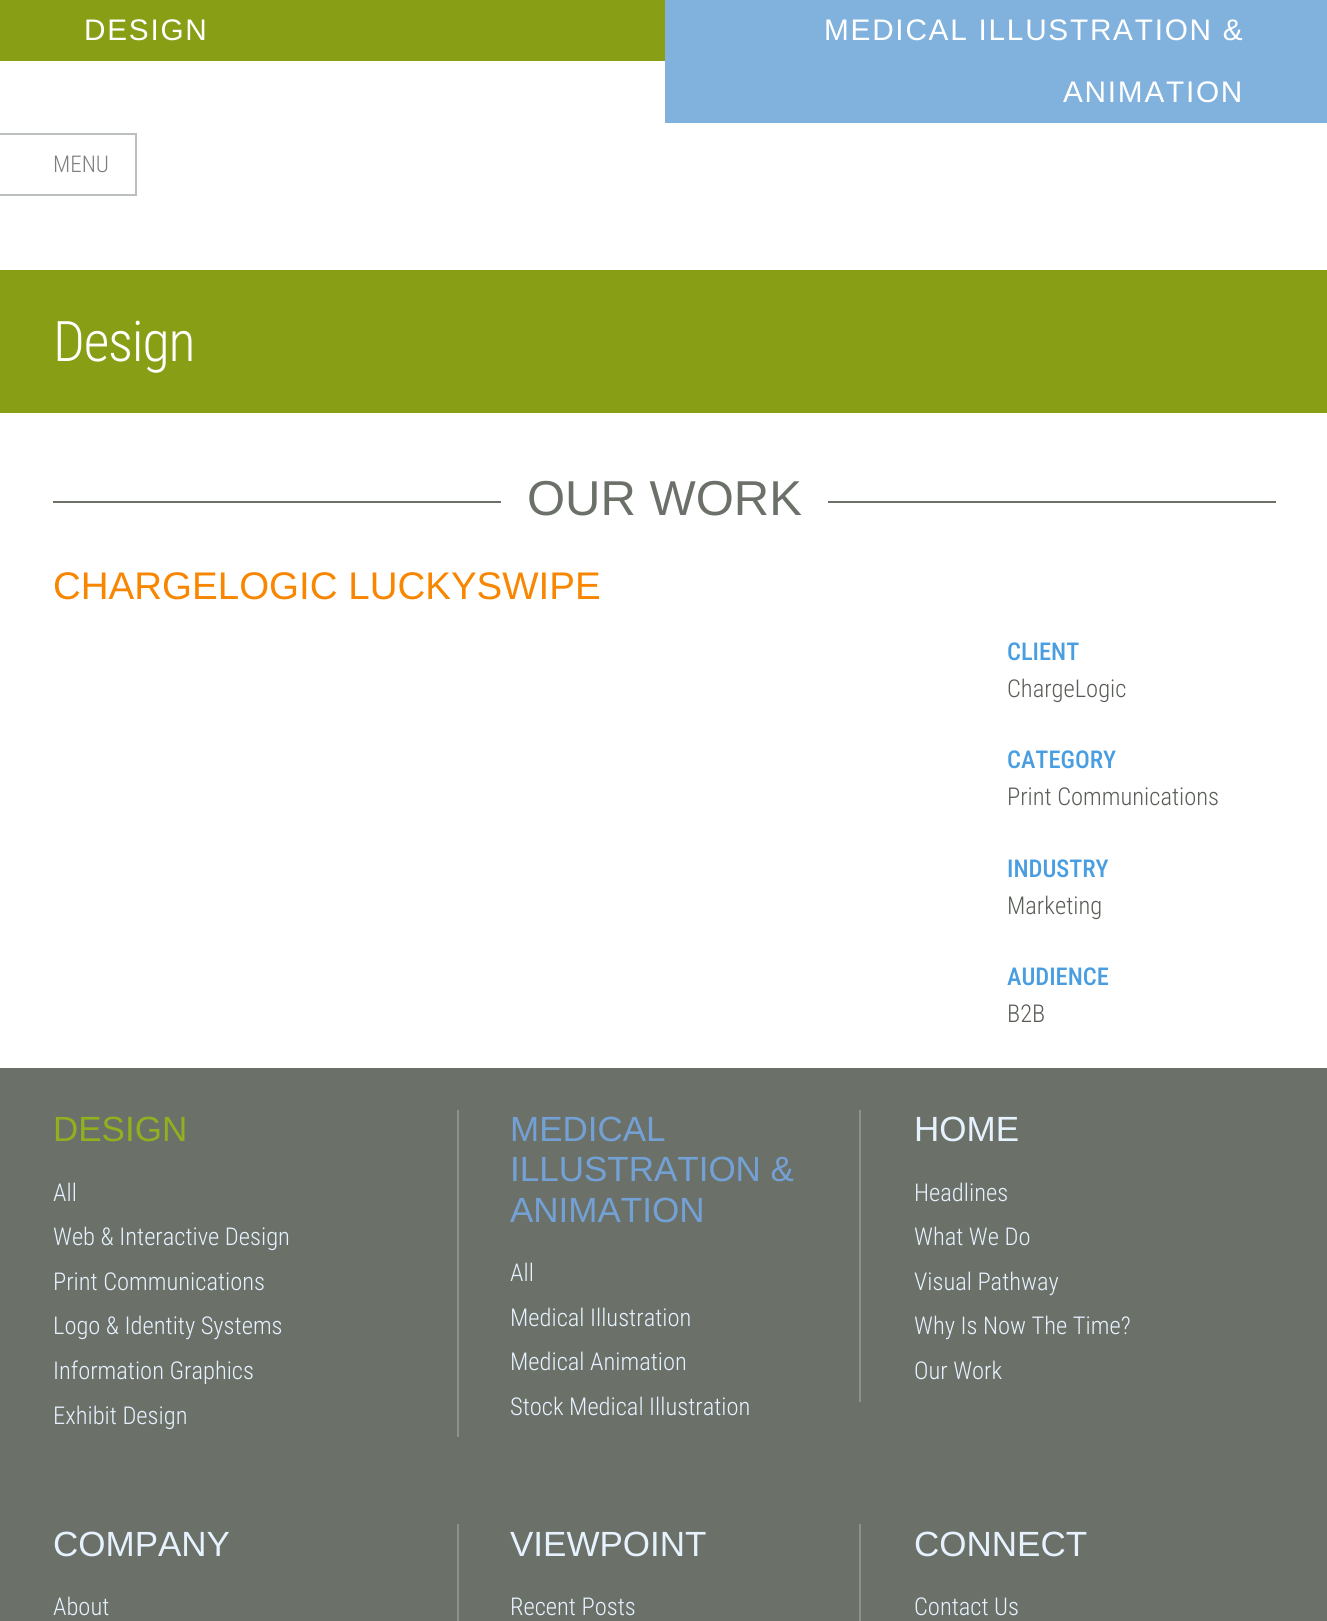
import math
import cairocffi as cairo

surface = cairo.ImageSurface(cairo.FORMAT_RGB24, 1327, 1621)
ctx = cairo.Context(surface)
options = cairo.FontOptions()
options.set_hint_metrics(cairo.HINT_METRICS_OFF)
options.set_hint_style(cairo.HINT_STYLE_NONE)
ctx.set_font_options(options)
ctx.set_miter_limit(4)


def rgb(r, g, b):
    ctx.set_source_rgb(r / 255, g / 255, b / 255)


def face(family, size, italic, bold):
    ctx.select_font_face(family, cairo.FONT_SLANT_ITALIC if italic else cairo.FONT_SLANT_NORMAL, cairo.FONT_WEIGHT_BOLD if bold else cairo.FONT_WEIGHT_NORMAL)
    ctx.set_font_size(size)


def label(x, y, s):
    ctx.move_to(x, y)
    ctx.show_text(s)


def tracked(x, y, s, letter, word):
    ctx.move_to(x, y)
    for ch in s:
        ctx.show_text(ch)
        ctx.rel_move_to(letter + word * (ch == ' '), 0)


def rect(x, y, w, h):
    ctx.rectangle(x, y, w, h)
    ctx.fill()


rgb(255, 255, 255)
ctx.paint()
rgb(136, 158, 21)
rect(0, 0, 665, 61)
face('Liberation Sans', 29.75, 0, 0)
rgb(255, 255, 255)
tracked(84, 40, 'DESIGN', 1.75, 0)
rgb(129, 178, 221)
rect(665, 0, 662, 123)
rgb(255, 255, 255)
tracked(824, 40, 'MEDICAL ILLUSTRATION &', 1.75, 0)
tracked(1063, 102, 'ANIMATION', 1.75, 0)
rgb(188, 191, 191)
rect(0, 133, 137, 2)
rect(135, 133, 2, 63)
rect(0, 194, 137, 2)
face('Roboto Condensed Light', 23, 0, 0)
rgb(126, 126, 126)
label(53, 172, 'MENU')
rgb(136, 158, 21)
rect(0, 270, 1327, 143)
face('Roboto Condensed Light', 56, 0, 0)
rgb(255, 255, 255)
tracked(53, 361, 'Design', -1.25, 0)
rgb(107, 112, 105)
rect(53, 501, 1223, 2)
rgb(255, 255, 255)
rect(501, 501, 327, 2)
face('Liberation Sans', 49, 0, 0)
rgb(107, 112, 105)
label(527, 515, 'OUR WORK')
face('Liberation Sans', 38.5, 0, 0)
rgb(248, 134, 0)
label(53, 599, 'CHARGELOGIC LUCKYSWIPE')
face('Roboto Condensed Medium', 24.5, 0, 0)
rgb(73, 157, 225)
label(1007, 660, 'CLIENT')
face('Roboto Condensed Light', 24.5, 0, 0)
rgb(88, 93, 86)
label(1007, 697, 'ChargeLogic')
face('Roboto Condensed Medium', 24.5, 0, 0)
rgb(73, 157, 225)
label(1007, 768, 'CATEGORY')
face('Roboto Condensed Light', 24.5, 0, 0)
rgb(88, 93, 86)
label(1007, 805, 'Print Communications')
face('Roboto Condensed Medium', 24.5, 0, 0)
rgb(73, 157, 225)
label(1007, 877, 'INDUSTRY')
face('Roboto Condensed Light', 24.5, 0, 0)
rgb(88, 93, 86)
label(1007, 914, 'Marketing')
face('Roboto Condensed Medium', 24.5, 0, 0)
rgb(73, 157, 225)
label(1007, 985, 'AUDIENCE')
face('Roboto Condensed Light', 24.5, 0, 0)
rgb(88, 93, 86)
label(1007, 1022, 'B2B')
rgb(107, 112, 105)
rect(0, 1068, 1327, 553)
face('Liberation Sans', 35, 0, 0)
rgb(144, 176, 31)
label(53, 1141, 'DESIGN')
face('Roboto Condensed Light', 24.5, 0, 0)
rgb(230, 242, 254)
label(53, 1201, 'All')
label(53, 1245, 'Web & Interactive Design')
label(53, 1290, 'Print Communications')
label(53, 1334, 'Logo & Identity Systems')
label(53, 1379, 'Information Graphics')
label(53, 1424, 'Exhibit Design')
rgb(143, 143, 143)
rect(457, 1110, 2, 327)
face('Liberation Sans', 35, 0, 0)
rgb(115, 161, 213)
label(510, 1141, 'MEDICAL')
label(510, 1181, 'ILLUSTRATION &')
label(510, 1222, 'ANIMATION')
face('Roboto Condensed Light', 24.5, 0, 0)
rgb(230, 242, 254)
label(510, 1281, 'All')
label(510, 1326, 'Medical Illustration')
label(510, 1370, 'Medical Animation')
label(510, 1415, 'Stock Medical Illustration')
rgb(143, 143, 143)
rect(859, 1110, 2, 292)
face('Liberation Sans', 35, 0, 0)
rgb(230, 242, 254)
label(914, 1141, 'HOME')
face('Roboto Condensed Light', 24.5, 0, 0)
label(914, 1201, 'Headlines')
label(914, 1245, 'What We Do')
label(914, 1290, 'Visual Pathway')
label(914, 1334, 'Why Is Now The Time?')
label(914, 1379, 'Our Work')
face('Liberation Sans', 35, 0, 0)
label(53, 1556, 'COMPANY')
face('Roboto Condensed Light', 24.5, 0, 0)
label(53, 1615, 'About')
rgb(143, 143, 143)
rect(457, 1524, 2, 97)
face('Liberation Sans', 35, 0, 0)
rgb(230, 242, 254)
label(510, 1556, 'VIEWPOINT')
face('Roboto Condensed Light', 24.5, 0, 0)
label(510, 1615, 'Recent Posts')
rgb(143, 143, 143)
rect(859, 1524, 2, 97)
face('Liberation Sans', 35, 0, 0)
rgb(230, 242, 254)
label(914, 1556, 'CONNECT')
face('Roboto Condensed Light', 24.5, 0, 0)
label(914, 1615, 'Contact Us')
surface.write_to_png('render.png')
